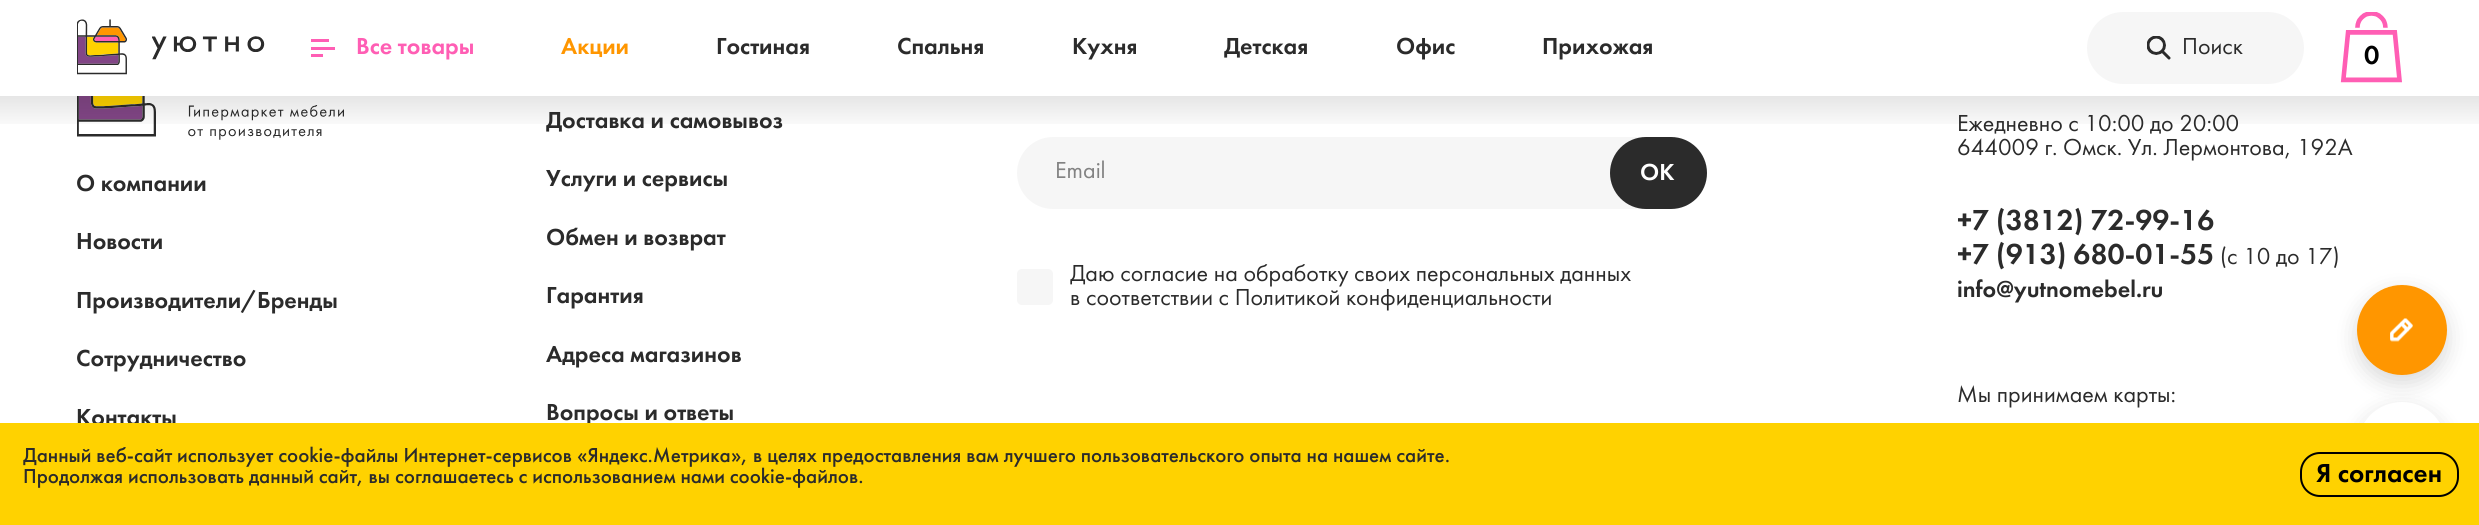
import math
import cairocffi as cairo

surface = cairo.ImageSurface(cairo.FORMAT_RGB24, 2479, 525)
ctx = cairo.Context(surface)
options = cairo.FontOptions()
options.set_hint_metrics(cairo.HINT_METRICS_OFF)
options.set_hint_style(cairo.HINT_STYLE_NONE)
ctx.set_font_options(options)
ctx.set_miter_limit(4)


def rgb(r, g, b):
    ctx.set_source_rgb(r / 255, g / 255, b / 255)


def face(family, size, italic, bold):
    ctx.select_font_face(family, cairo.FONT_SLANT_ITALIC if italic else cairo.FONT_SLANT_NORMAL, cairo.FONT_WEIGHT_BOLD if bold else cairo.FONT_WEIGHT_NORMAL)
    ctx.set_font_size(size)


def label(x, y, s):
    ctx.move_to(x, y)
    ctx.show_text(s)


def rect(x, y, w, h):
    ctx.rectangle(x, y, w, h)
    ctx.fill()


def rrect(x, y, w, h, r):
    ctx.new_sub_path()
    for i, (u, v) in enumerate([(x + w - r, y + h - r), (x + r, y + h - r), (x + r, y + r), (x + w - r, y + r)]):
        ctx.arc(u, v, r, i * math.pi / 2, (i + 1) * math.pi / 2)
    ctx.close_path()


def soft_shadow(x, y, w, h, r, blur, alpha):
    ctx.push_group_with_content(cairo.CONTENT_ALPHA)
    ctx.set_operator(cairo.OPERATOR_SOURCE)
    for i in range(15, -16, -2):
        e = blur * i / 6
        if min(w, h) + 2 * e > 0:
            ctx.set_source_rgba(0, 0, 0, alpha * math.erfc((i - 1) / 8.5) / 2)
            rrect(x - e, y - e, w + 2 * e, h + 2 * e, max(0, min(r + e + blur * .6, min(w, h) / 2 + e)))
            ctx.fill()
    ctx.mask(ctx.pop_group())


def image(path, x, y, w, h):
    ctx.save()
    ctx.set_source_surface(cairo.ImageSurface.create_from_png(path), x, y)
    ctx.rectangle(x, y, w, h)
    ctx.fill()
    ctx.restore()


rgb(255, 255, 255)
ctx.paint()
image('image0.png', 77, 19, 50, 56)
image('image1.png', 152, 36, 113, 24)
rgb(255, 94, 180)
rect(311, 39, 18, 3)
rect(311, 47, 24, 3)
rect(311, 54, 12, 3)
face('Futura', 24, 0, 0)
label(356, 54, 'Все товары')
rgb(255, 150, 0)
label(561, 54, 'Акции')
rgb(43, 43, 43)
label(716, 54, 'Гостиная')
label(897, 54, 'Спальня')
label(1072, 54, 'Кухня')
label(1224, 54, 'Детская')
label(1396, 54, 'Офис')
label(1542, 54, 'Прихожая')
rgb(246, 246, 246)
rrect(2087, 12, 217, 72, 36)
ctx.fill()
image('image2.png', 2147, 36, 24, 24)
face('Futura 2', 24, 0, 0)
rgb(43, 43, 43)
label(2182, 54, 'Поиск')
image('image3.png', 2340, 12, 62, 71)
face('Futura', 27, 0, 0)
rgb(0, 0, 0)
label(2364, 64, '0')
image('image4.png', 77, 96, 267, 44)
gradient = cairo.LinearGradient(1240, 96, 1240, 132)
gradient.add_color_stop_rgba(0, 0, 0, 0, 0.1)
gradient.add_color_stop_rgba(1, 0, 0, 0, 0)
ctx.set_source(gradient)
rect(0, 96, 2479, 28)
face('Futura', 24, 0, 0)
rgb(43, 43, 43)
label(76, 191, 'О компании')
label(76, 249, 'Новости')
label(76, 308, 'Производители/Бренды')
label(76, 366, 'Сотрудничество')
label(76, 425, 'Контакты')
label(546, 128, 'Доставка и самовывоз')
label(546, 186, 'Услуги и сервисы')
label(546, 245, 'Обмен и возврат')
label(546, 303, 'Гарантия')
label(546, 362, 'Адреса магазинов')
label(546, 420, 'Вопросы и ответы')
rgb(246, 246, 246)
rrect(1017, 137, 677, 72, 36)
ctx.fill()
face('Futura 2', 24, 0, 0)
rgb(130, 130, 130)
label(1055, 178, 'Email')
rgb(43, 43, 43)
rrect(1610, 137, 97, 72, 36)
ctx.fill()
face('Futura', 24, 0, 0)
rgb(255, 255, 255)
label(1640, 180, 'ОК')
rgb(246, 246, 246)
rrect(1017, 269, 36, 36, 5)
ctx.fill()
face('Futura 2', 24, 0, 0)
rgb(43, 43, 43)
label(1070, 281, 'Даю согласие на обработку своих персональных данных')
label(1070, 305, 'в соответствии c Политикой конфиденциальности')
label(1957, 131, 'Ежедневно с 10:00 до 20:00')
label(1957, 155, '644009 г. Омск. Ул. Лермонтова, 192А')
face('Futura', 30, 0, 0)
label(1957, 230, '+7 (3812) 72-99-16')
label(1957, 264, '+7 (913) 680-01-55')
face('Futura 2', 24, 0, 0)
label(2220, 264, '(с 10 до 17)')
face('Futura', 24, 0, 0)
label(1957, 297, 'info@yutnomebel.ru')
face('Futura 2', 24, 0, 0)
label(1957, 402, 'Мы принимаем карты:')
rgb(0, 0, 0)
soft_shadow(2357, 293, 90, 90, 45, 11, 0.15)
rgb(255, 150, 0)
ctx.arc(2402, 330, 45, 0, 2 * math.pi)
ctx.fill()
image('image5.png', 2390, 318, 23, 24)
rgb(0, 0, 0)
soft_shadow(2357, 410, 90, 90, 45, 11, 0.15)
rgb(255, 255, 255)
ctx.arc(2402, 447, 45, 0, 2 * math.pi)
ctx.fill()
rgb(255, 210, 0)
rect(0, 423, 2479, 102)
face('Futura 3', 21, 0, 0)
rgb(43, 43, 43)
label(23, 462, 'Данный веб-сайт использует cookie-файлы Интернет-сервисов «Яндекс.Метрика», в целях предоставления вам лучшего пользовательского опыта на нашем сайте.')
label(23, 483, 'Продолжая использовать данный сайт, вы соглашаетесь с использованием нами cookie-файлов.')
rrect(2301, 453, 157, 43, 19)
rgb(0, 0, 0)
ctx.stroke()
face('Futura', 27, 0, 0)
label(2316, 482, 'Я согласен')
surface.write_to_png('render.png')
